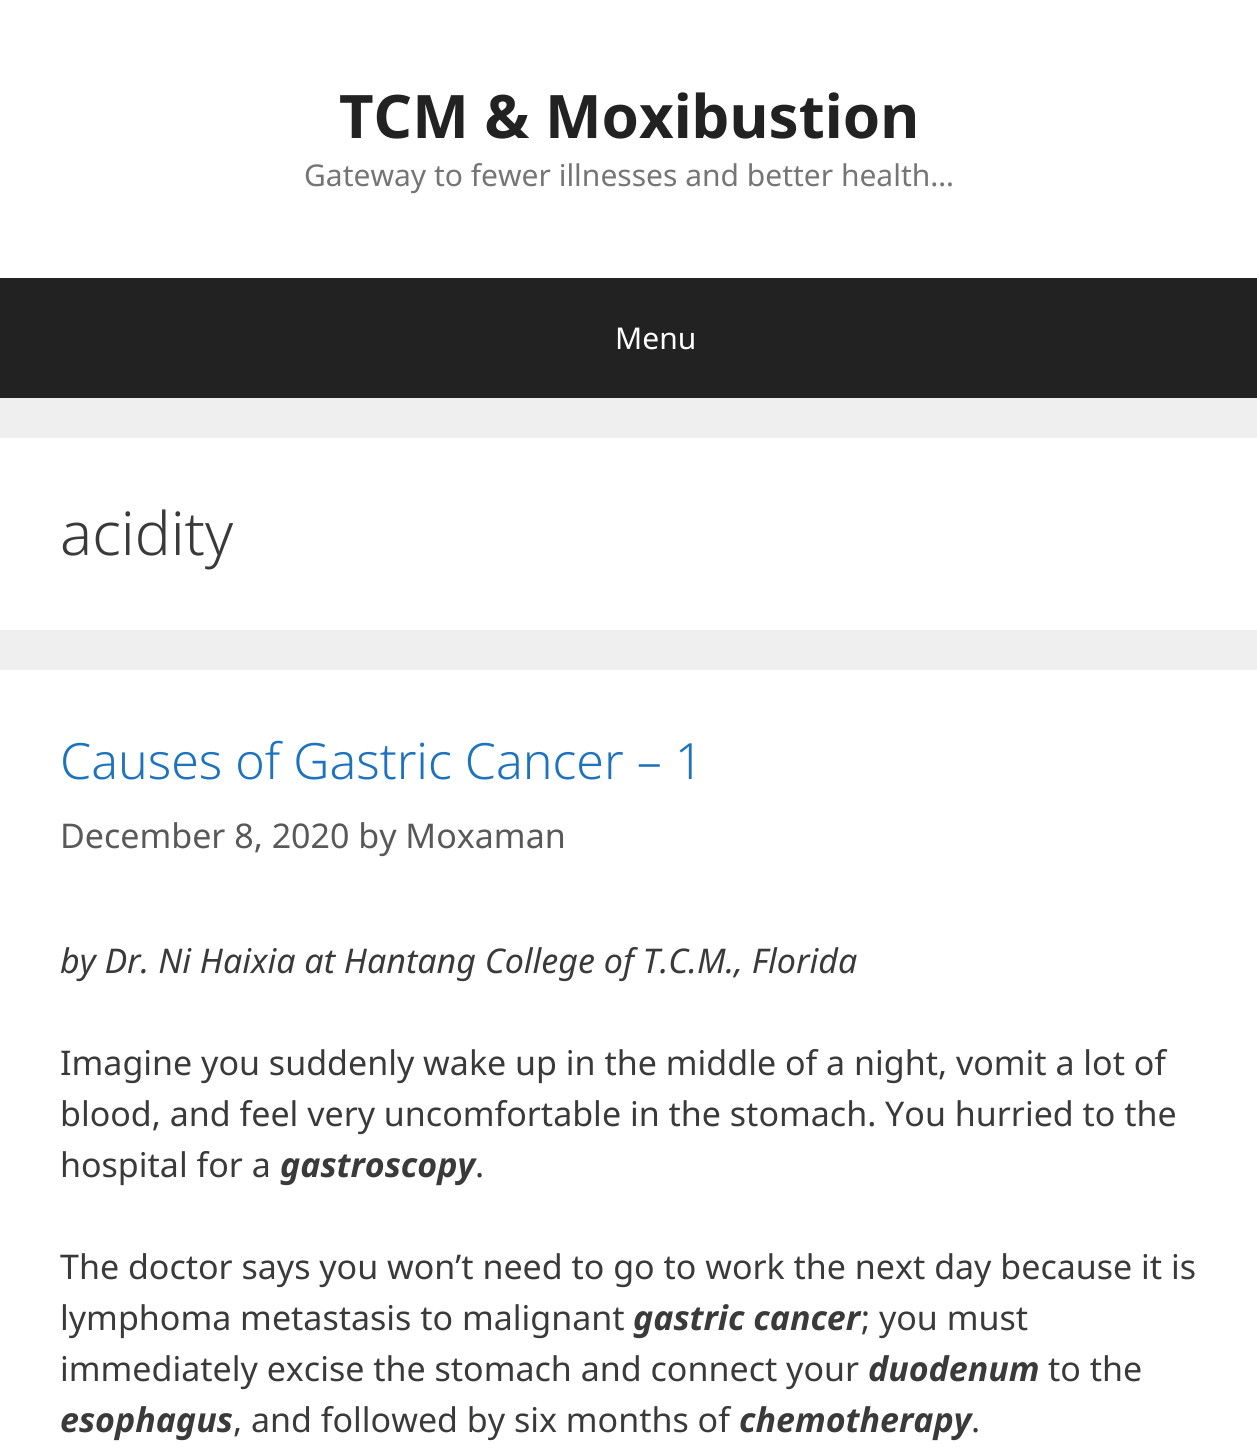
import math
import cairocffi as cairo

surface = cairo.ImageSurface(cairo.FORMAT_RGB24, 1257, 1452)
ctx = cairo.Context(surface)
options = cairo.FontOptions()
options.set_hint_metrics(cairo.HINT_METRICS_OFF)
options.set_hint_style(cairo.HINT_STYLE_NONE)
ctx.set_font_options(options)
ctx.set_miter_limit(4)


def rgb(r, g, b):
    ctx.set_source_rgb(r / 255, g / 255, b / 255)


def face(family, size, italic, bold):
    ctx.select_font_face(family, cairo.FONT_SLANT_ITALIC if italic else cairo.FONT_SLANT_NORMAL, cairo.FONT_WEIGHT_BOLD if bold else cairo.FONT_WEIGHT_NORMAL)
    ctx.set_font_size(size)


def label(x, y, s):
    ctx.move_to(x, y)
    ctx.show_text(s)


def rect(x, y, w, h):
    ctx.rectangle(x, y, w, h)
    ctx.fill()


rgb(239, 239, 239)
ctx.paint()
rgb(255, 255, 255)
rect(0, 0, 1257, 278)
face('Noto Sans', 60, 0, 1)
rgb(34, 34, 34)
label(339, 138, 'TCM & Moxibustion')
face('Noto Sans', 30, 0, 0)
rgb(117, 117, 117)
label(304, 186, 'Gateway to fewer illnesses and better health…')
rgb(34, 34, 34)
rect(0, 278, 1257, 120)
rgb(255, 255, 255)
label(615, 349, 'Menu')
rect(0, 438, 1257, 192)
face('Noto Sans Light', 60, 0, 0)
rgb(58, 58, 58)
label(60, 555, 'acidity')
rgb(255, 255, 255)
rect(0, 670, 1257, 782)
face('Noto Sans Light', 50, 0, 0)
rgb(30, 115, 190)
label(60, 779, 'Causes of Gastric Cancer – 1')
face('Noto Sans', 34, 0, 0)
rgb(89, 89, 89)
label(60, 848, 'December 8, 2020 by Moxaman')
face('Noto Sans', 34, 1, 0)
rgb(58, 58, 58)
label(60, 973, 'by Dr. Ni Haixia at Hantang College of T.C.M., Florida')
face('Noto Sans', 34, 0, 0)
label(60, 1075, 'Imagine you suddenly wake up in the middle of a night, vomit a lot of')
label(60, 1126, 'blood, and feel very uncomfortable in the stomach. You hurried to the')
label(60, 1177, 'hospital for a')
face('Noto Sans', 34, 1, 1)
label(280, 1177, 'gastroscopy')
face('Noto Sans', 34, 0, 0)
label(475, 1177, '.')
label(60, 1279, 'The doctor says you won’t need to go to work the next day because it is')
label(60, 1330, 'lymphoma metastasis to malignant')
face('Noto Sans', 34, 1, 1)
label(633, 1330, 'gastric cancer')
face('Noto Sans', 34, 0, 0)
label(861, 1330, '; you must')
label(60, 1381, 'immediately excise the stomach and connect your')
face('Noto Sans', 34, 1, 1)
label(868, 1381, 'duodenum')
face('Noto Sans', 34, 0, 0)
label(1048, 1381, 'to the')
face('Noto Sans', 34, 1, 1)
label(60, 1432, 'esophagus')
face('Noto Sans', 34, 0, 0)
label(233, 1432, ', and followed by six months of')
face('Noto Sans', 34, 1, 1)
label(739, 1432, 'chemotherapy')
face('Noto Sans', 34, 0, 0)
label(971, 1432, '.')
surface.write_to_png('render.png')
